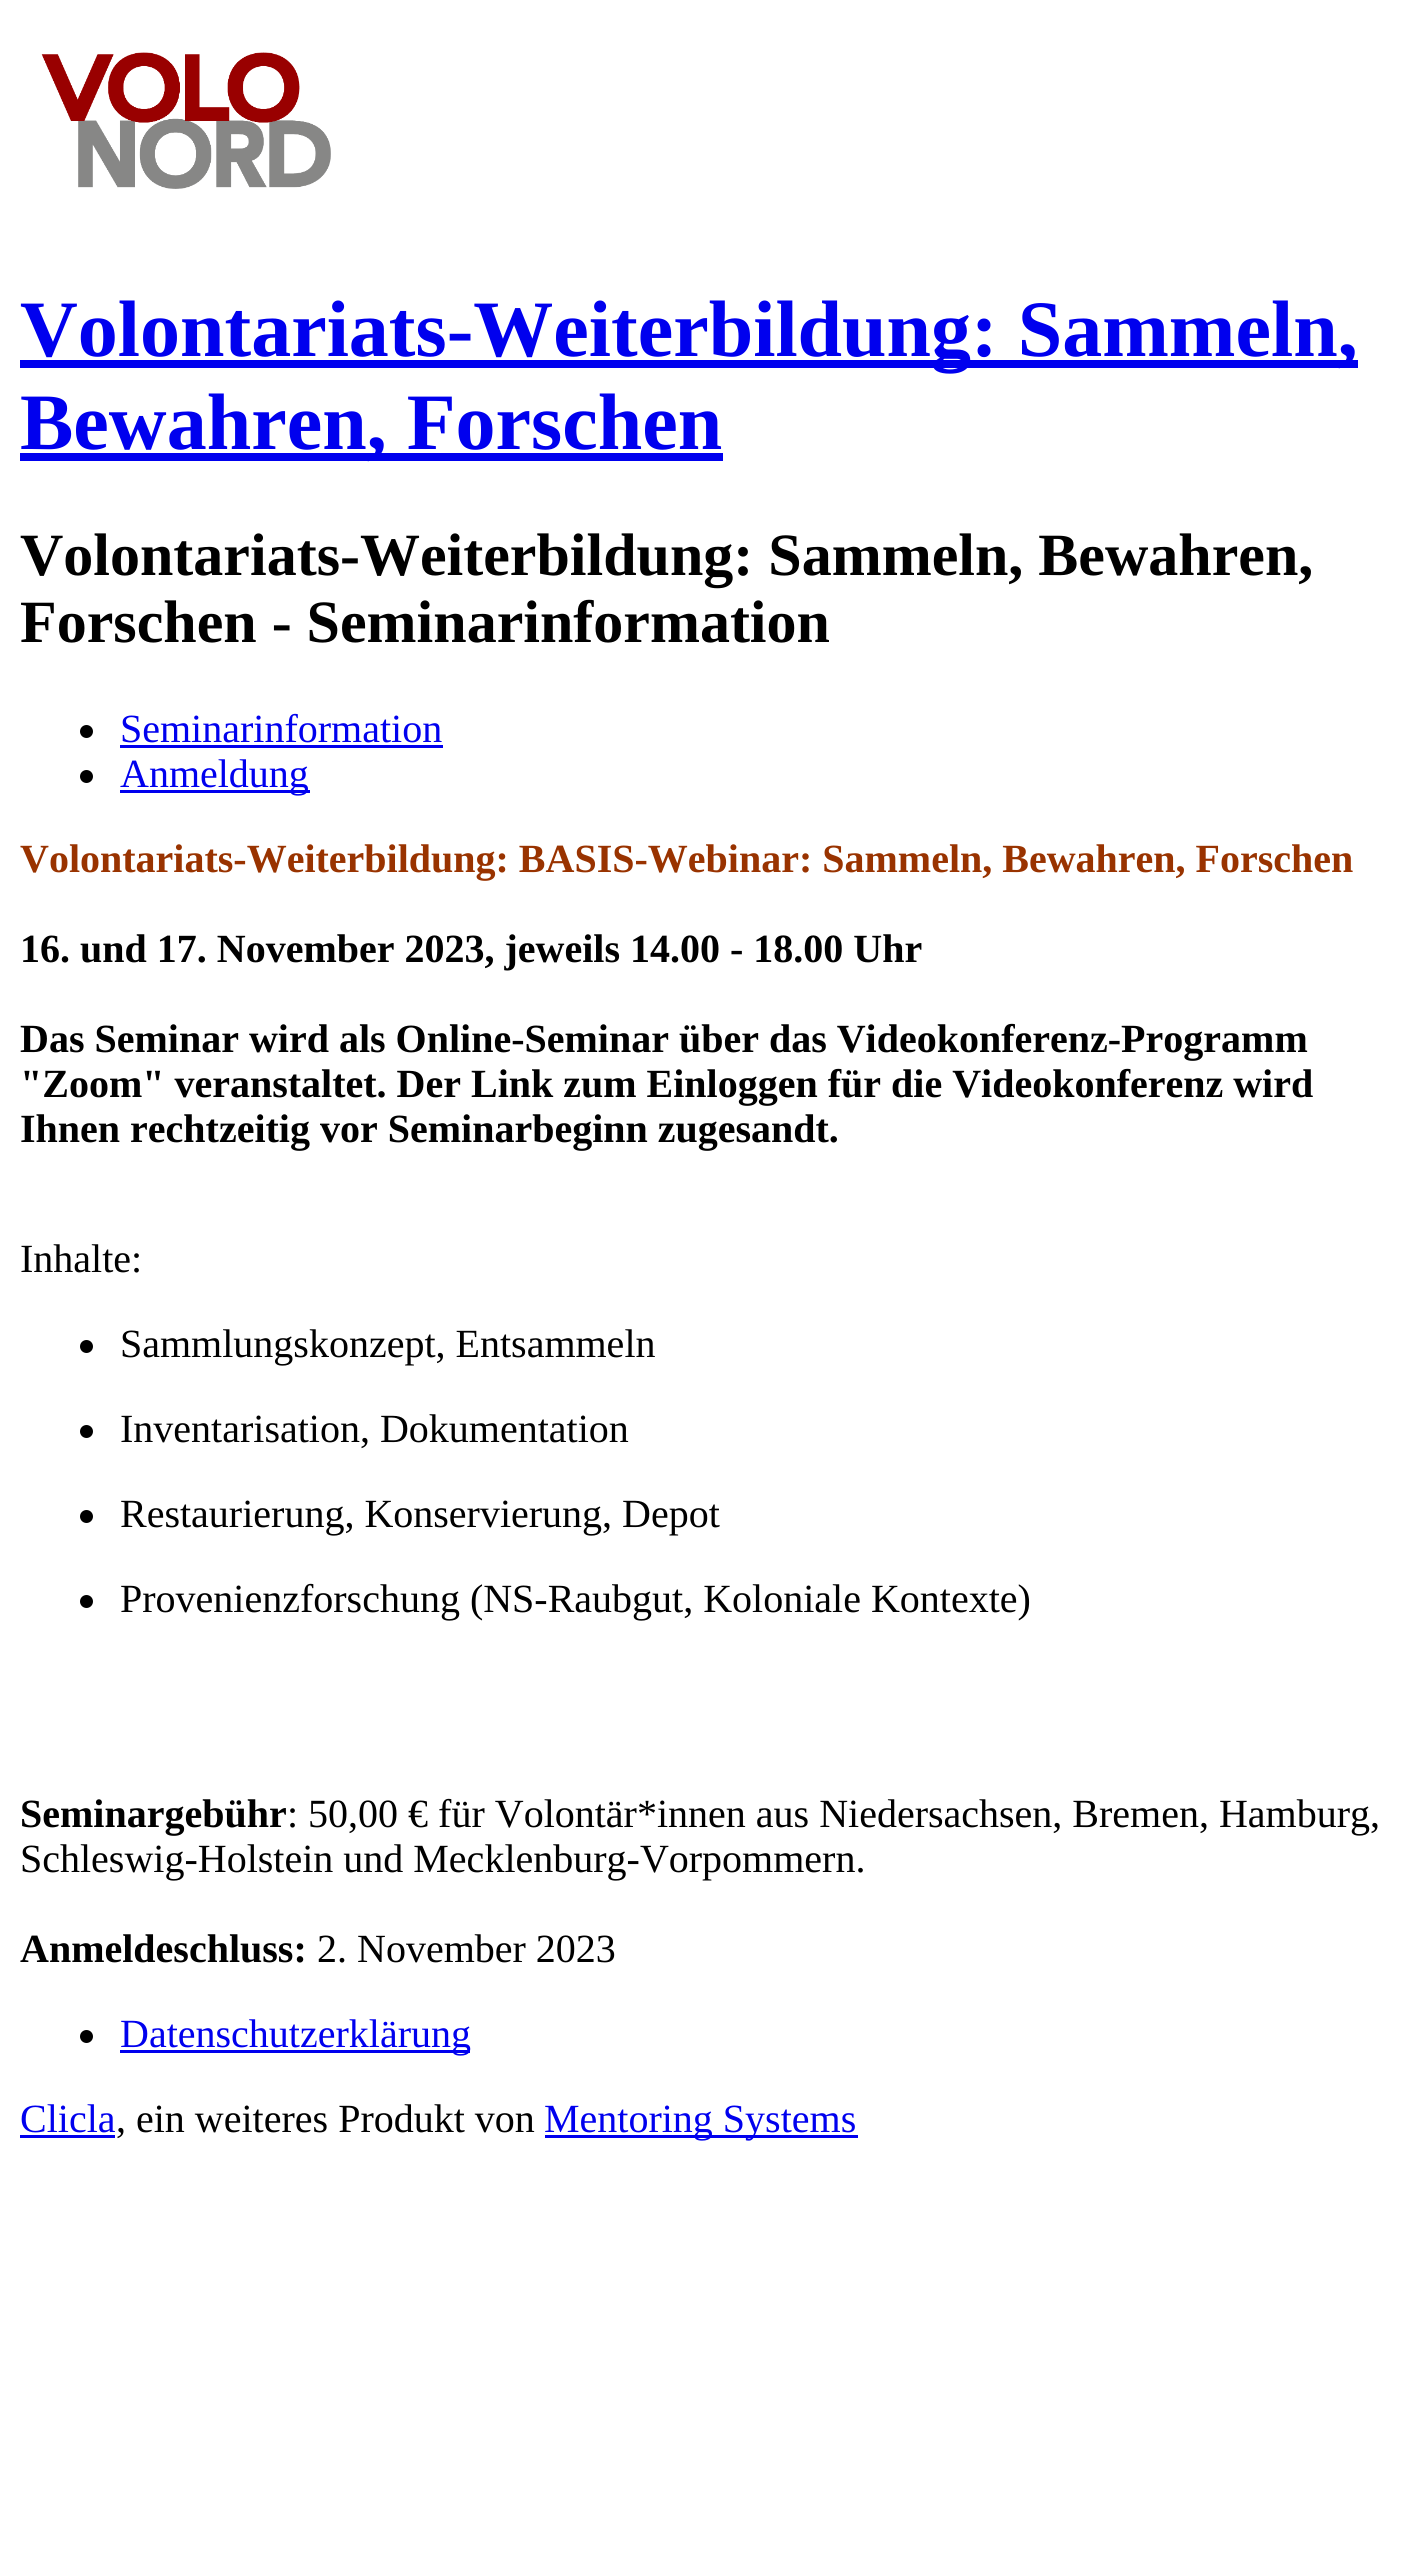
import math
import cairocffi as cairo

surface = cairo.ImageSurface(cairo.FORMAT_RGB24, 1414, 2562)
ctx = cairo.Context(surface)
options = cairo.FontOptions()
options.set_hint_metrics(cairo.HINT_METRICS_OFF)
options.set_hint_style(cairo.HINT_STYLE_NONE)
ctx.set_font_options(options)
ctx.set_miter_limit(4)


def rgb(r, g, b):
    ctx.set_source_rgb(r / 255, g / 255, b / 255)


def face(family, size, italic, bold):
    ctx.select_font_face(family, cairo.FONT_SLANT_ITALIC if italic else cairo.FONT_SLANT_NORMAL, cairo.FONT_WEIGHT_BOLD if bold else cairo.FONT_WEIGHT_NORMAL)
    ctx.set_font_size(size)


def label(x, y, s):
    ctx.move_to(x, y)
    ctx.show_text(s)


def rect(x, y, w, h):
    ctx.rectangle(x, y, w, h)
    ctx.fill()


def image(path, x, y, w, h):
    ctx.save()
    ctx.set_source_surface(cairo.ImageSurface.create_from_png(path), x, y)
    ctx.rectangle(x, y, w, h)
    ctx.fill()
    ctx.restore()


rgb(255, 255, 255)
ctx.paint()
image('image0.png', 41, 52, 290, 137)
rgb(0, 0, 238)
rect(20, 360, 1338, 8)
face('Liberation Serif', 80, 0, 1)
label(20, 356, 'Volontariats-Weiterbildung: Sammeln,')
rect(20, 453, 703, 8)
label(20, 449, 'Bewahren, Forschen')
face('Liberation Serif', 60, 0, 1)
rgb(0, 0, 0)
label(20, 575, 'Volontariats-Weiterbildung: Sammeln, Bewahren,')
label(20, 642, 'Forschen - Seminarinformation')
ctx.new_path()
ctx.arc(86.5, 731.5, 6.5, 0, 2 * math.pi)
ctx.fill()
face('Liberation Serif', 40, 0, 0)
rgb(0, 0, 238)
label(120, 742, 'Seminarinformation')
rect(120, 745, 323, 3)
rgb(0, 0, 0)
ctx.new_path()
ctx.arc(86.5, 776.5, 6.5, 0, 2 * math.pi)
ctx.fill()
rgb(0, 0, 238)
rect(120, 790, 190, 3)
label(120, 787, 'Anmeldung')
face('Liberation Serif', 40, 0, 1)
rgb(153, 51, 0)
label(20, 872, 'Volontariats-Weiterbildung: BASIS-Webinar: Sammeln, Bewahren, Forschen')
rgb(0, 0, 0)
label(20, 962, '16. und 17. November 2023, jeweils 14.00 - 18.00 Uhr')
label(20, 1052, 'Das Seminar wird als Online-Seminar über das Videokonferenz-Programm')
label(20, 1097, '"Zoom" veranstaltet. Der Link zum Einloggen für die Videokonferenz wird')
label(20, 1142, 'Ihnen rechtzeitig vor Seminarbeginn zugesandt.')
face('Liberation Serif', 40, 0, 0)
label(20, 1272, 'Inhalte:')
ctx.new_path()
ctx.arc(86.5, 1346.5, 6.5, 0, 2 * math.pi)
ctx.fill()
label(120, 1357, 'Sammlungskonzept, Entsammeln')
ctx.new_path()
ctx.arc(86.5, 1431.5, 6.5, 0, 2 * math.pi)
ctx.fill()
label(120, 1442, 'Inventarisation, Dokumentation')
ctx.new_path()
ctx.arc(86.5, 1516.5, 6.5, 0, 2 * math.pi)
ctx.fill()
label(120, 1527, 'Restaurierung, Konservierung, Depot')
ctx.new_path()
ctx.arc(86.5, 1601.5, 6.5, 0, 2 * math.pi)
ctx.fill()
label(120, 1612, 'Provenienzforschung (NS-Raubgut, Koloniale Kontexte)')
face('Liberation Serif', 40, 0, 1)
label(20, 1827, 'Seminargebühr')
face('Liberation Serif', 40, 0, 0)
label(287, 1827, ': 50,00 € für Volontär*innen aus Niedersachsen, Bremen, Hamburg,')
label(20, 1872, 'Schleswig-Holstein und Mecklenburg-Vorpommern.')
face('Liberation Serif', 40, 0, 1)
label(20, 1962, 'Anmeldeschluss:')
face('Liberation Serif', 40, 0, 0)
label(317, 1962, '2. November 2023')
ctx.new_path()
ctx.arc(86.5, 2036.5, 6.5, 0, 2 * math.pi)
ctx.fill()
rgb(0, 0, 238)
rect(120, 2050, 350, 3)
label(120, 2047, 'Datenschutzerklärung')
label(20, 2132, 'Clicla')
rect(20, 2135, 95, 3)
rgb(0, 0, 0)
label(116, 2132, ', ein weiteres Produkt von')
rgb(0, 0, 238)
rect(545, 2135, 313, 3)
label(544, 2132, 'Mentoring Systems')
surface.write_to_png('render.png')
